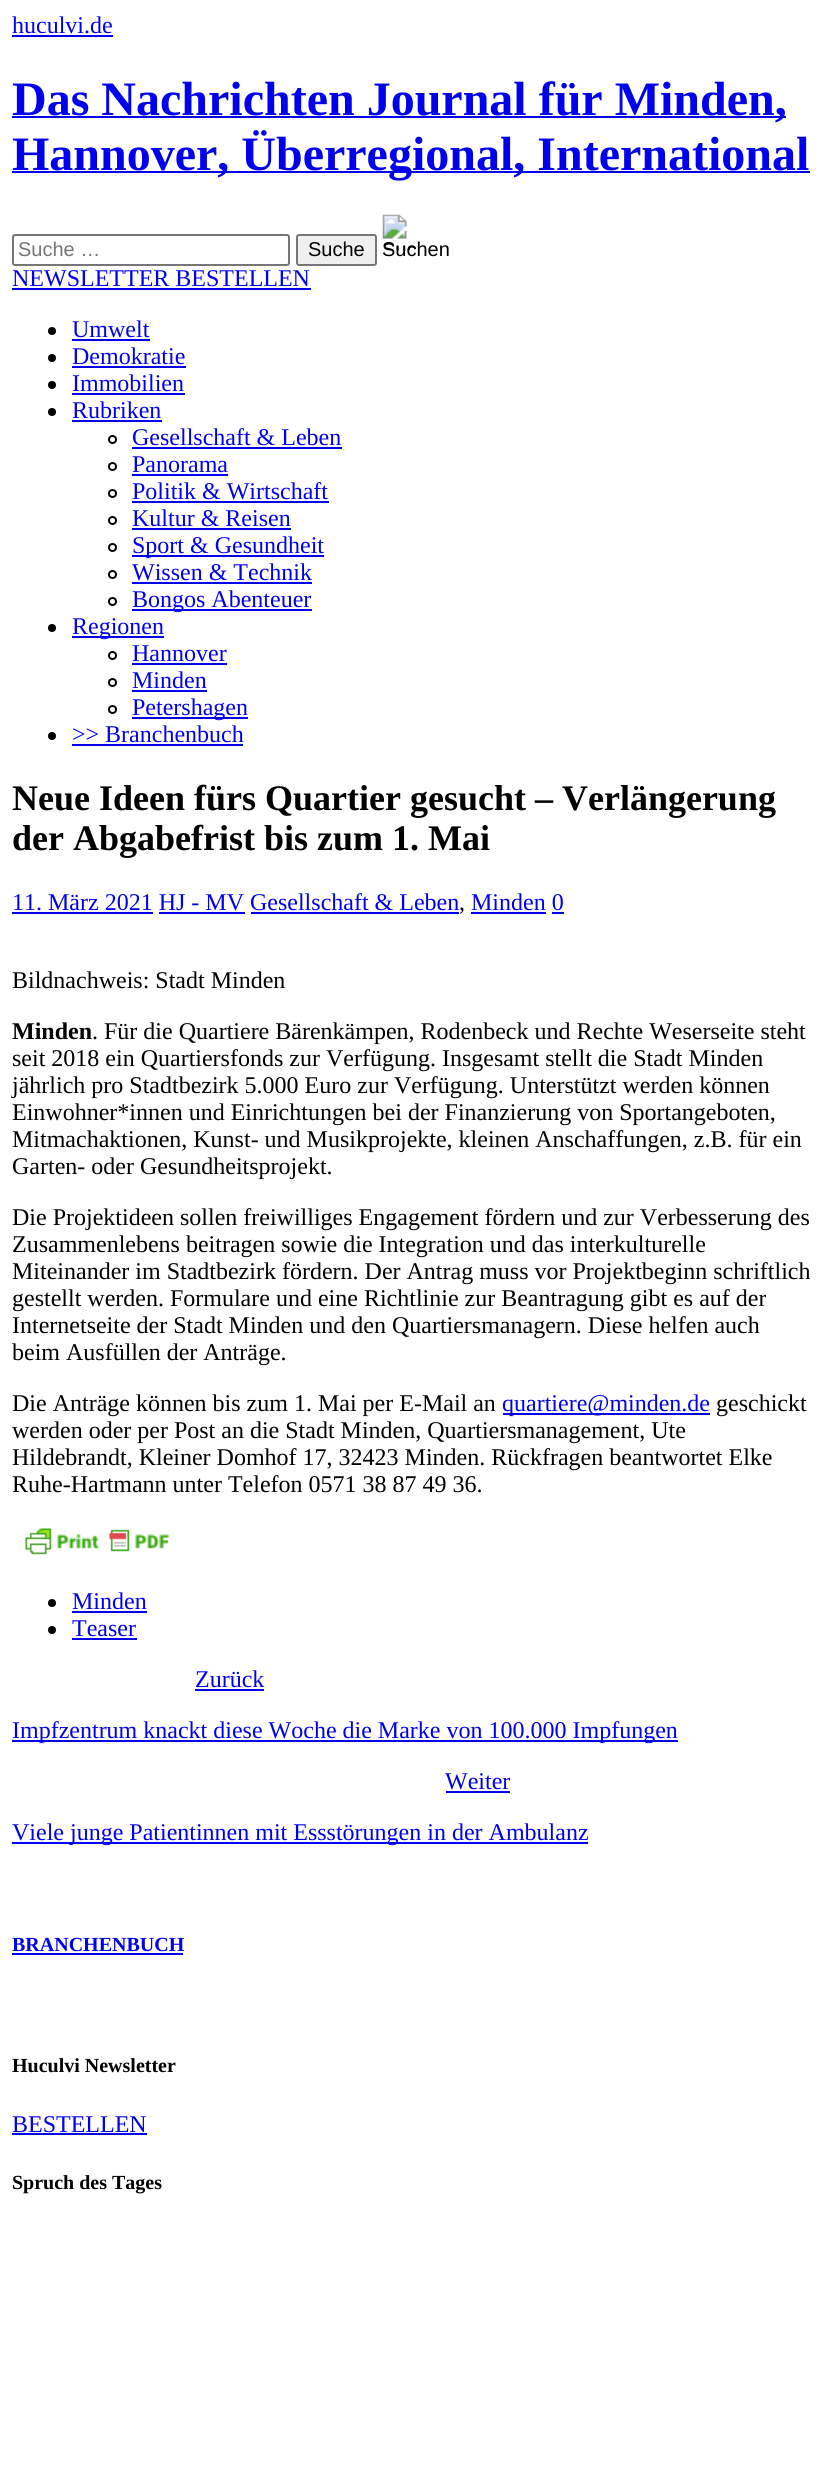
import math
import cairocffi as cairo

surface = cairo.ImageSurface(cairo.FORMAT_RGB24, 823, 2466)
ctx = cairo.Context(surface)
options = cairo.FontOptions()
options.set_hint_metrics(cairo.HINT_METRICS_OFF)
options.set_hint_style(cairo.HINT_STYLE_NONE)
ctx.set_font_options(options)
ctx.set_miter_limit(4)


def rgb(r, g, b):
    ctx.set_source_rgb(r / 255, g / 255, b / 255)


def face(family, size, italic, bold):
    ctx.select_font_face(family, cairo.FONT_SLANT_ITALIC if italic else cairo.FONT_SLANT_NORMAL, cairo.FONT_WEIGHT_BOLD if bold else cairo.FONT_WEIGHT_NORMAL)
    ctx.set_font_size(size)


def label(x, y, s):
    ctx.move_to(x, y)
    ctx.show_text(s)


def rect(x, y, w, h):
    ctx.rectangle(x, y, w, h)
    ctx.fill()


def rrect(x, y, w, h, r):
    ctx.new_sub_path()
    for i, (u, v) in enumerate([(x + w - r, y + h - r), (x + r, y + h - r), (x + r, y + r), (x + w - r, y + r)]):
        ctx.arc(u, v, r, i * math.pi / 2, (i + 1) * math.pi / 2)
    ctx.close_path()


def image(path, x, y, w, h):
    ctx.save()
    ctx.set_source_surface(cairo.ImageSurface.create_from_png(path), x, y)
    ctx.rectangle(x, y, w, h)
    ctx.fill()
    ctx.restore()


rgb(255, 255, 255)
ctx.paint()
face('Liberation Serif', 24, 0, 0)
rgb(0, 0, 238)
label(12, 33, 'huculvi.de')
rect(12, 35, 101, 2)
rect(12, 116, 774, 2)
face('Liberation Serif', 48, 0, 1)
label(12, 115, 'Das Nachrichten Journal für Minden,')
rect(12, 171, 798, 2)
label(12, 170, 'Hannover, Überregional, International')
rrect(13, 235, 276, 30, 2)
rgb(118, 118, 118)
ctx.stroke()
face('Liberation Sans', 20, 0, 0)
rgb(117, 117, 117)
label(18, 256, 'Suche …')
rgb(239, 239, 239)
rrect(297, 235, 79, 30, 2)
ctx.fill_preserve()
rgb(118, 118, 118)
ctx.stroke()
rgb(0, 0, 0)
label(308, 256, 'Suche')
image('image0.png', 382, 214, 37, 37)
label(382, 256, 'Suchen')
face('Liberation Serif', 24, 0, 0)
rgb(0, 0, 238)
label(12, 286, 'NEWSLETTER BESTELLEN')
rect(12, 288, 299, 2)
rgb(0, 0, 0)
ctx.new_path()
ctx.arc(52, 331, 4, 0, 2 * math.pi)
ctx.fill()
rgb(0, 0, 238)
label(72, 337, 'Umwelt')
rect(72, 339, 78, 2)
rgb(0, 0, 0)
ctx.new_path()
ctx.arc(52, 358, 4, 0, 2 * math.pi)
ctx.fill()
rgb(0, 0, 238)
label(72, 364, 'Demokratie')
rect(72, 366, 114, 2)
rgb(0, 0, 0)
ctx.new_path()
ctx.arc(52, 385, 4, 0, 2 * math.pi)
ctx.fill()
rgb(0, 0, 238)
label(72, 391, 'Immobilien')
rect(72, 393, 113, 2)
rgb(0, 0, 0)
ctx.new_path()
ctx.arc(52, 412, 4, 0, 2 * math.pi)
ctx.fill()
rgb(0, 0, 238)
label(72, 418, 'Rubriken')
rect(72, 420, 90, 2)
ctx.new_path()
ctx.arc(112.5, 439.5, 3.5, 0, 2 * math.pi)
rgb(0, 0, 0)
ctx.stroke()
rgb(0, 0, 238)
label(132, 445, 'Gesellschaft & Leben')
rect(132, 447, 210, 2)
ctx.new_path()
ctx.arc(112.5, 466.5, 3.5, 0, 2 * math.pi)
rgb(0, 0, 0)
ctx.stroke()
rgb(0, 0, 238)
label(132, 472, 'Panorama')
rect(132, 474, 96, 2)
ctx.new_path()
ctx.arc(112.5, 493.5, 3.5, 0, 2 * math.pi)
rgb(0, 0, 0)
ctx.stroke()
rgb(0, 0, 238)
label(132, 499, 'Politik & Wirtschaft')
rect(132, 501, 197, 2)
ctx.new_path()
ctx.arc(112.5, 520.5, 3.5, 0, 2 * math.pi)
rgb(0, 0, 0)
ctx.stroke()
rgb(0, 0, 238)
label(132, 526, 'Kultur & Reisen')
rect(132, 528, 159, 2)
ctx.new_path()
ctx.arc(112.5, 547.5, 3.5, 0, 2 * math.pi)
rgb(0, 0, 0)
ctx.stroke()
rgb(0, 0, 238)
rect(132, 555, 192, 2)
label(132, 553, 'Sport & Gesundheit')
ctx.new_path()
ctx.arc(112.5, 574.5, 3.5, 0, 2 * math.pi)
rgb(0, 0, 0)
ctx.stroke()
rgb(0, 0, 238)
label(132, 580, 'Wissen & Technik')
rect(132, 582, 180, 2)
ctx.new_path()
ctx.arc(112.5, 601.5, 3.5, 0, 2 * math.pi)
rgb(0, 0, 0)
ctx.stroke()
rgb(0, 0, 238)
rect(132, 609, 180, 2)
label(132, 607, 'Bongos Abenteuer')
rgb(0, 0, 0)
ctx.new_path()
ctx.arc(52, 628, 4, 0, 2 * math.pi)
ctx.fill()
rgb(0, 0, 238)
rect(72, 636, 92, 2)
label(72, 634, 'Regionen')
ctx.new_path()
ctx.arc(112.5, 655.5, 3.5, 0, 2 * math.pi)
rgb(0, 0, 0)
ctx.stroke()
rgb(0, 0, 238)
label(132, 661, 'Hannover')
rect(132, 663, 95, 2)
ctx.new_path()
ctx.arc(112.5, 682.5, 3.5, 0, 2 * math.pi)
rgb(0, 0, 0)
ctx.stroke()
rgb(0, 0, 238)
label(132, 688, 'Minden')
rect(132, 690, 75, 2)
ctx.new_path()
ctx.arc(112.5, 709.5, 3.5, 0, 2 * math.pi)
rgb(0, 0, 0)
ctx.stroke()
rgb(0, 0, 238)
rect(132, 717, 116, 2)
label(132, 715, 'Petershagen')
rgb(0, 0, 0)
ctx.new_path()
ctx.arc(52, 736, 4, 0, 2 * math.pi)
ctx.fill()
rgb(0, 0, 238)
label(72, 742, '>> Branchenbuch')
rect(72, 744, 171, 2)
face('Liberation Serif', 36, 0, 1)
rgb(0, 0, 0)
label(12, 810, 'Neue Ideen fürs Quartier gesucht – Verlängerung')
label(12, 850, 'der Abgabefrist bis zum 1. Mai')
face('Liberation Serif', 24, 0, 0)
rgb(0, 0, 238)
label(12, 910, '11. März 2021 HJ - MV Gesellschaft & Leben')
rect(12, 912, 141, 2)
rgb(0, 0, 0)
label(459, 910, ',')
rgb(0, 0, 238)
rect(251, 912, 208, 2)
rect(471, 912, 75, 2)
label(471, 910, 'Minden 0')
rect(159, 912, 86, 2)
rect(552, 912, 12, 2)
rgb(0, 0, 0)
label(12, 988, 'Bildnachweis: Stadt Minden')
face('Liberation Serif', 24, 0, 1)
label(12, 1039, 'Minden')
face('Liberation Serif', 24, 0, 0)
label(92, 1039, '. Für die Quartiere Bärenkämpen, Rodenbeck und Rechte Weserseite steht')
label(12, 1066, 'seit 2018 ein Quartiersfonds zur Verfügung. Insgesamt stellt die Stadt Minden')
label(12, 1093, 'jährlich pro Stadtbezirk 5.000 Euro zur Verfügung. Unterstützt werden können')
label(12, 1120, 'Einwohner*innen und Einrichtungen bei der Finanzierung von Sportangeboten,')
label(12, 1147, 'Mitmachaktionen, Kunst- und Musikprojekte, kleinen Anschaffungen, z.B. für ein')
label(12, 1174, 'Garten- oder Gesundheitsprojekt.')
label(12, 1225, 'Die Projektideen sollen freiwilliges Engagement fördern und zur Verbesserung des')
label(12, 1252, 'Zusammenlebens beitragen sowie die Integration und das interkulturelle')
label(12, 1279, 'Miteinander im Stadtbezirk fördern. Der Antrag muss vor Projektbeginn schriftlich')
label(12, 1306, 'gestellt werden. Formulare und eine Richtlinie zur Beantragung gibt es auf der')
label(12, 1333, 'Internetseite der Stadt Minden und den Quartiersmanagern. Diese helfen auch')
label(12, 1360, 'beim Ausfüllen der Anträge.')
label(12, 1411, 'Die Anträge können bis zum 1. Mai per E-Mail an')
rgb(0, 0, 238)
rect(503, 1413, 207, 2)
label(502, 1411, 'quartiere@minden.de')
rgb(0, 0, 0)
label(716, 1411, 'geschickt')
label(12, 1438, 'werden oder per Post an die Stadt Minden, Quartiersmanagement, Ute')
label(12, 1465, 'Hildebrandt, Kleiner Domhof 17, 32423 Minden. Rückfragen beantwortet Elke')
label(12, 1492, 'Ruhe-Hartmann unter Telefon 0571 38 87 49 36.')
image('image1.png', 25, 1528, 145, 27)
ctx.arc(52, 1603, 4, 0, 2 * math.pi)
ctx.fill()
rgb(0, 0, 238)
label(72, 1609, 'Minden')
rect(72, 1611, 75, 2)
rgb(0, 0, 0)
ctx.new_path()
ctx.arc(52, 1630, 4, 0, 2 * math.pi)
ctx.fill()
rgb(0, 0, 238)
label(72, 1636, 'Teaser')
rect(72, 1638, 65, 2)
label(195, 1687, 'Zurück')
rect(195, 1689, 69, 2)
rect(12, 1740, 666, 2)
label(12, 1738, 'Impfzentrum knackt diese Woche die Marke von 100.000 Impfungen')
label(445, 1789, 'Weiter')
rect(446, 1791, 64, 2)
rect(12, 1842, 576, 2)
label(12, 1840, 'Viele junge Patientinnen mit Essstörungen in der Ambulanz')
face('Liberation Serif', 20, 0, 1)
label(12, 1951, 'BRANCHENBUCH')
rect(12, 1953, 171, 2)
rgb(0, 0, 0)
label(12, 2072, 'Huculvi Newsletter')
face('Liberation Serif', 24, 0, 0)
rgb(0, 0, 238)
label(12, 2132, 'BESTELLEN')
rect(12, 2133, 135, 2)
face('Liberation Serif', 20, 0, 1)
rgb(0, 0, 0)
label(12, 2189, 'Spruch des Tages')
surface.write_to_png('render.png')
